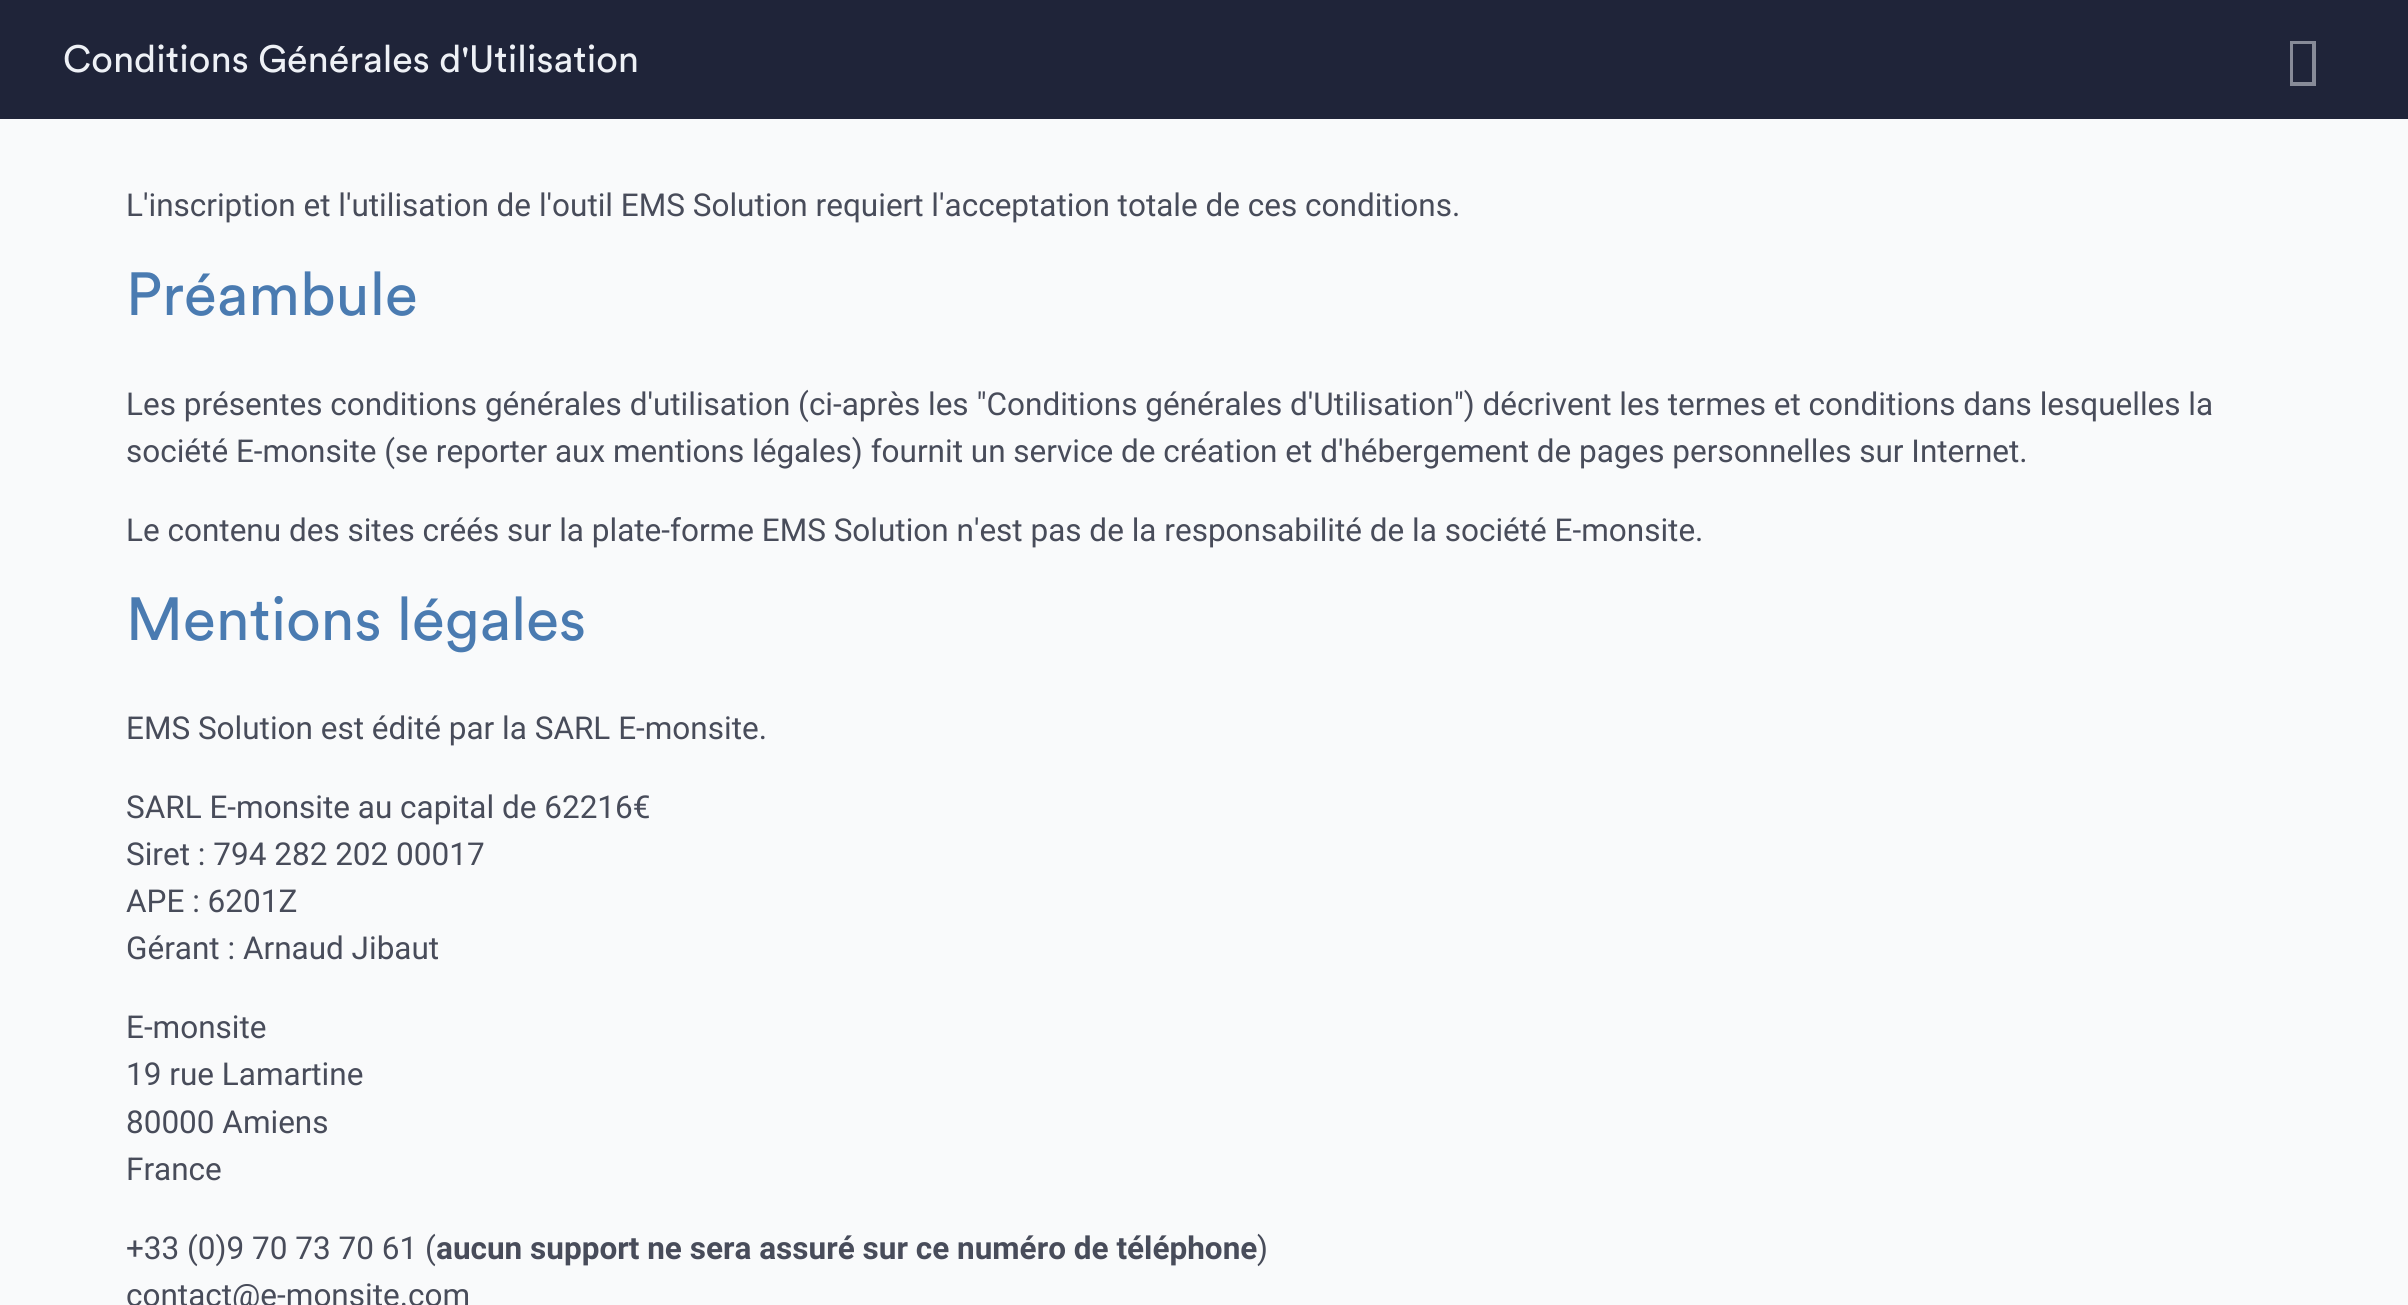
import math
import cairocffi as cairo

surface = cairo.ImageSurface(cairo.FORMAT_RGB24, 2408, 1305)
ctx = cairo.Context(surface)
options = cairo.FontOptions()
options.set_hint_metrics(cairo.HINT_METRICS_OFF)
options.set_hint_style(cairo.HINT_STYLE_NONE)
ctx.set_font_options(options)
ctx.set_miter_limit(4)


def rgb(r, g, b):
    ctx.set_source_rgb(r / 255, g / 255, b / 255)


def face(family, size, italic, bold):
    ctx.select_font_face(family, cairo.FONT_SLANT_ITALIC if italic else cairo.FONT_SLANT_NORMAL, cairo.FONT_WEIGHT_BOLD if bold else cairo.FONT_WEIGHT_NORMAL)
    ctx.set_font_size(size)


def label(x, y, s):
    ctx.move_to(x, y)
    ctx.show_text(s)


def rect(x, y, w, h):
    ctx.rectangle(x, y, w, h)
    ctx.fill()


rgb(249, 250, 251)
ctx.paint()
rgb(31, 36, 57)
rect(0, 0, 2408, 119)
face('Circular', 37.75, 0, 0)
rgb(238, 241, 246)
label(63, 72, 'Conditions Générales d\'Utilisation')
face('Roboto', 31.5, 0, 0)
rgb(72, 76, 90)
label(126, 216, 'L\'inscription et l\'utilisation de l\'outil EMS Solution requiert l\'acceptation totale de ces conditions.')
face('Circular', 60.25, 0, 0)
rgb(74, 123, 177)
label(126, 315, 'Préambule')
face('Roboto', 31.5, 0, 0)
rgb(72, 76, 90)
label(126, 415, 'Les présentes conditions générales d\'utilisation (ci-après les "Conditions générales d\'Utilisation") décrivent les termes et conditions dans lesquelles la')
label(126, 462, 'société E-monsite (se reporter aux mentions légales) fournit un service de création et d\'hébergement de pages personnelles sur Internet.')
label(126, 541, 'Le contenu des sites créés sur la plate-forme EMS Solution n\'est pas de la responsabilité de la société E-monsite.')
face('Circular', 60.25, 0, 0)
rgb(74, 123, 177)
label(126, 640, 'Mentions légales')
face('Roboto', 31.5, 0, 0)
rgb(72, 76, 90)
label(126, 739, 'EMS Solution est édité par la SARL E-monsite.')
label(126, 818, 'SARL E-monsite au capital de 62216€')
label(126, 865, 'Siret : 794 282 202 00017')
label(126, 912, 'APE : 6201Z')
label(126, 959, 'Gérant : Arnaud Jibaut')
label(126, 1038, 'E-monsite')
label(126, 1085, '19 rue Lamartine')
label(126, 1133, '80000 Amiens')
label(126, 1180, 'France')
label(126, 1259, '+33 (0)9 70 73 70 61 (')
face('Roboto', 31.5, 0, 1)
label(436, 1259, 'aucun support ne sera assuré sur ce numéro de téléphone')
face('Roboto', 31.5, 0, 0)
label(1257, 1259, ')')
label(126, 1306, 'contact@e-monsite.com')
rgb(135, 139, 152)
ctx.new_path()
ctx.move_to(2290, 86)
ctx.line_to(2290, 41)
ctx.line_to(2316, 41)
ctx.line_to(2316, 86)
ctx.close_path()
ctx.move_to(2293, 82)
ctx.line_to(2312, 82)
ctx.line_to(2312, 44)
ctx.line_to(2293, 44)
ctx.close_path()
ctx.fill()
surface.write_to_png('render.png')
